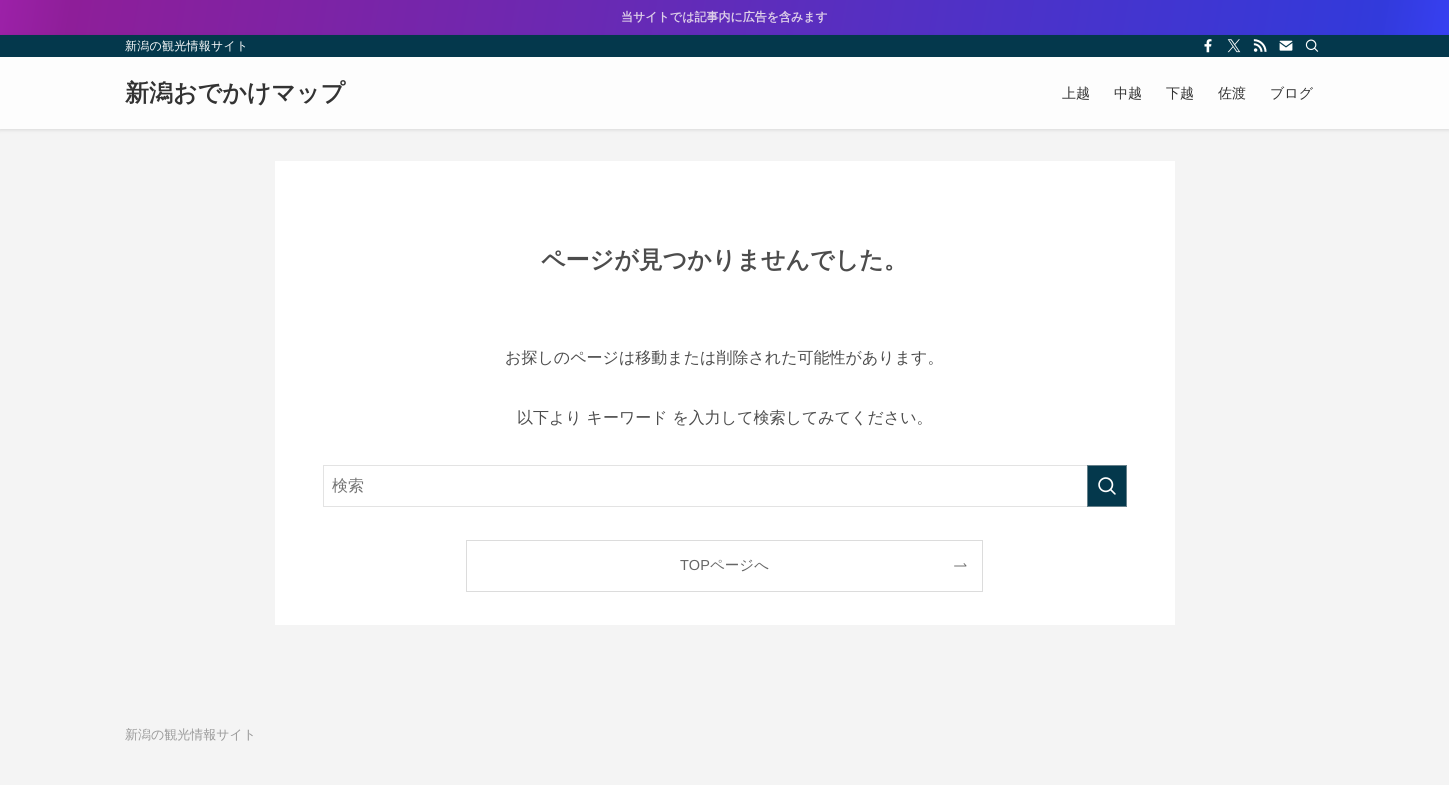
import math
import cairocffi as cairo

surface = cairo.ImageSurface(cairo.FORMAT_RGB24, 1449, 785)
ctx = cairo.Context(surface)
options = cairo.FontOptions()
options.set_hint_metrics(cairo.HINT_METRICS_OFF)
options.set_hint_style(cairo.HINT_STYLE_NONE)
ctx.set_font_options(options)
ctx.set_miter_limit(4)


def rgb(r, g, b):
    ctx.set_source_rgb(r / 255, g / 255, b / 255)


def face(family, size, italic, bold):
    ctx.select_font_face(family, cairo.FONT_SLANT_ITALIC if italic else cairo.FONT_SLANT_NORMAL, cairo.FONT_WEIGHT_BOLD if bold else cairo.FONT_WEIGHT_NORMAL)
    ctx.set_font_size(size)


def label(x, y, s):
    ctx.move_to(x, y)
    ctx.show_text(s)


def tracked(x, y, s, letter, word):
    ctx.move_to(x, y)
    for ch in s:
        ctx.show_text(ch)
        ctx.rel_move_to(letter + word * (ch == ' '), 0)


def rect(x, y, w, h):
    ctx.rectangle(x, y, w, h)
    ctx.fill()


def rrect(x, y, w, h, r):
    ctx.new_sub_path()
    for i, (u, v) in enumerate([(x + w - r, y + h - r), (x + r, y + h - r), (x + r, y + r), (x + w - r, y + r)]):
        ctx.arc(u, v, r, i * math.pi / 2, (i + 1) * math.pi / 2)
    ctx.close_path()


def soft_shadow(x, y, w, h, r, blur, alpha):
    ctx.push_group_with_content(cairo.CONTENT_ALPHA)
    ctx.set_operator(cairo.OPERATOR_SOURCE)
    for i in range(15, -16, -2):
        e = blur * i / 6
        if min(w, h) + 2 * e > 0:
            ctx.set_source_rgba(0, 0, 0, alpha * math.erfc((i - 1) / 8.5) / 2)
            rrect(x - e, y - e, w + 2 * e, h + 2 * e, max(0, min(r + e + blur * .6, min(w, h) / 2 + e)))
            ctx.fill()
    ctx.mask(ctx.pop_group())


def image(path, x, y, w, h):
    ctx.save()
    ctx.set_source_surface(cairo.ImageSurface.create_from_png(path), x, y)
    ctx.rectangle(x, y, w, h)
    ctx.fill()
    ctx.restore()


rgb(244, 244, 244)
ctx.paint()
gradient = cairo.LinearGradient(19, -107, 1430, 142)
gradient.add_color_stop_rgba(0, 0.612, 0.129, 0.659, 1)
gradient.add_color_stop_rgba(0.05, 0.557, 0.118, 0.6, 1)
gradient.add_color_stop_rgba(0.95, 0.196, 0.227, 0.859, 1)
gradient.add_color_stop_rgba(1, 0.216, 0.251, 0.945, 1)
ctx.set_source(gradient)
rect(0, 0, 1449, 35)
face('WenQuanYi Zen Hei', 12, 0, 1)
rgb(221, 206, 232)
label(621, 21, '当サイトでは記事内に広告を含みます')
rgb(0, 0, 0)
soft_shadow(0, 36, 1449, 94, 0, 2, 0.12)
rgb(253, 253, 253)
rect(0, 57, 1449, 72)
rgb(4, 56, 76)
rect(0, 35, 1449, 22)
face('WenQuanYi Zen Hei Medium', 12, 0, 0)
rgb(255, 255, 255)
tracked(125, 50, '新潟の観光情報サイト', 0.25, 0)
image('image0.png', 1204, 39, 8, 14)
image('image1.png', 1227, 39, 14, 14)
image('image2.png', 1253, 39, 14, 13)
image('image3.png', 1279, 40, 14, 11)
image('image4.png', 1305, 39, 14, 13)
face('WenQuanYi Zen Hei', 24, 0, 1)
rgb(51, 51, 51)
label(125, 101, '新潟おでかけマップ')
face('WenQuanYi Zen Hei Medium', 14, 0, 0)
label(1062, 98, '上越')
label(1114, 98, '中越')
label(1166, 98, '下越')
label(1218, 98, '佐渡')
label(1270, 98, 'ブログ')
rgb(255, 255, 255)
rect(275, 161, 900, 464)
face('WenQuanYi Zen Hei', 24, 0, 1)
rgb(76, 76, 76)
label(541, 268, 'ページが見つかりませんでした。')
face('WenQuanYi Zen Hei Medium', 16, 0, 0)
label(505, 363, 'お探しのページは移動または削除された可能性があります。')
label(517, 423, '以下より キーワード を入力して検索してみてください。')
ctx.rectangle(323.5, 465.5, 803, 41)
rgb(227, 227, 227)
ctx.set_line_width(1)
ctx.stroke()
rgb(117, 117, 117)
label(332, 491, '検索')
rgb(4, 56, 76)
ctx.rectangle(1087.5, 465.5, 39, 41)
ctx.fill_preserve()
rgb(102, 128, 138)
ctx.stroke()
image('image5.png', 1098, 477, 18, 18)
ctx.rectangle(466.5, 540.5, 516, 51)
rgb(220, 220, 220)
ctx.stroke()
face('Liberation Sans', 14.5, 0, 0)
rgb(102, 102, 102)
label(680, 570, 'TOP')
face('WenQuanYi Zen Hei Medium', 14.5, 0, 0)
label(710, 570, 'ページへ')
image('image6.png', 954, 563, 13, 4)
face('WenQuanYi Zen Hei Medium', 13, 0, 0)
rgb(153, 153, 153)
label(125, 739, '新潟の観光情報サイト')
surface.write_to_png('render.png')
